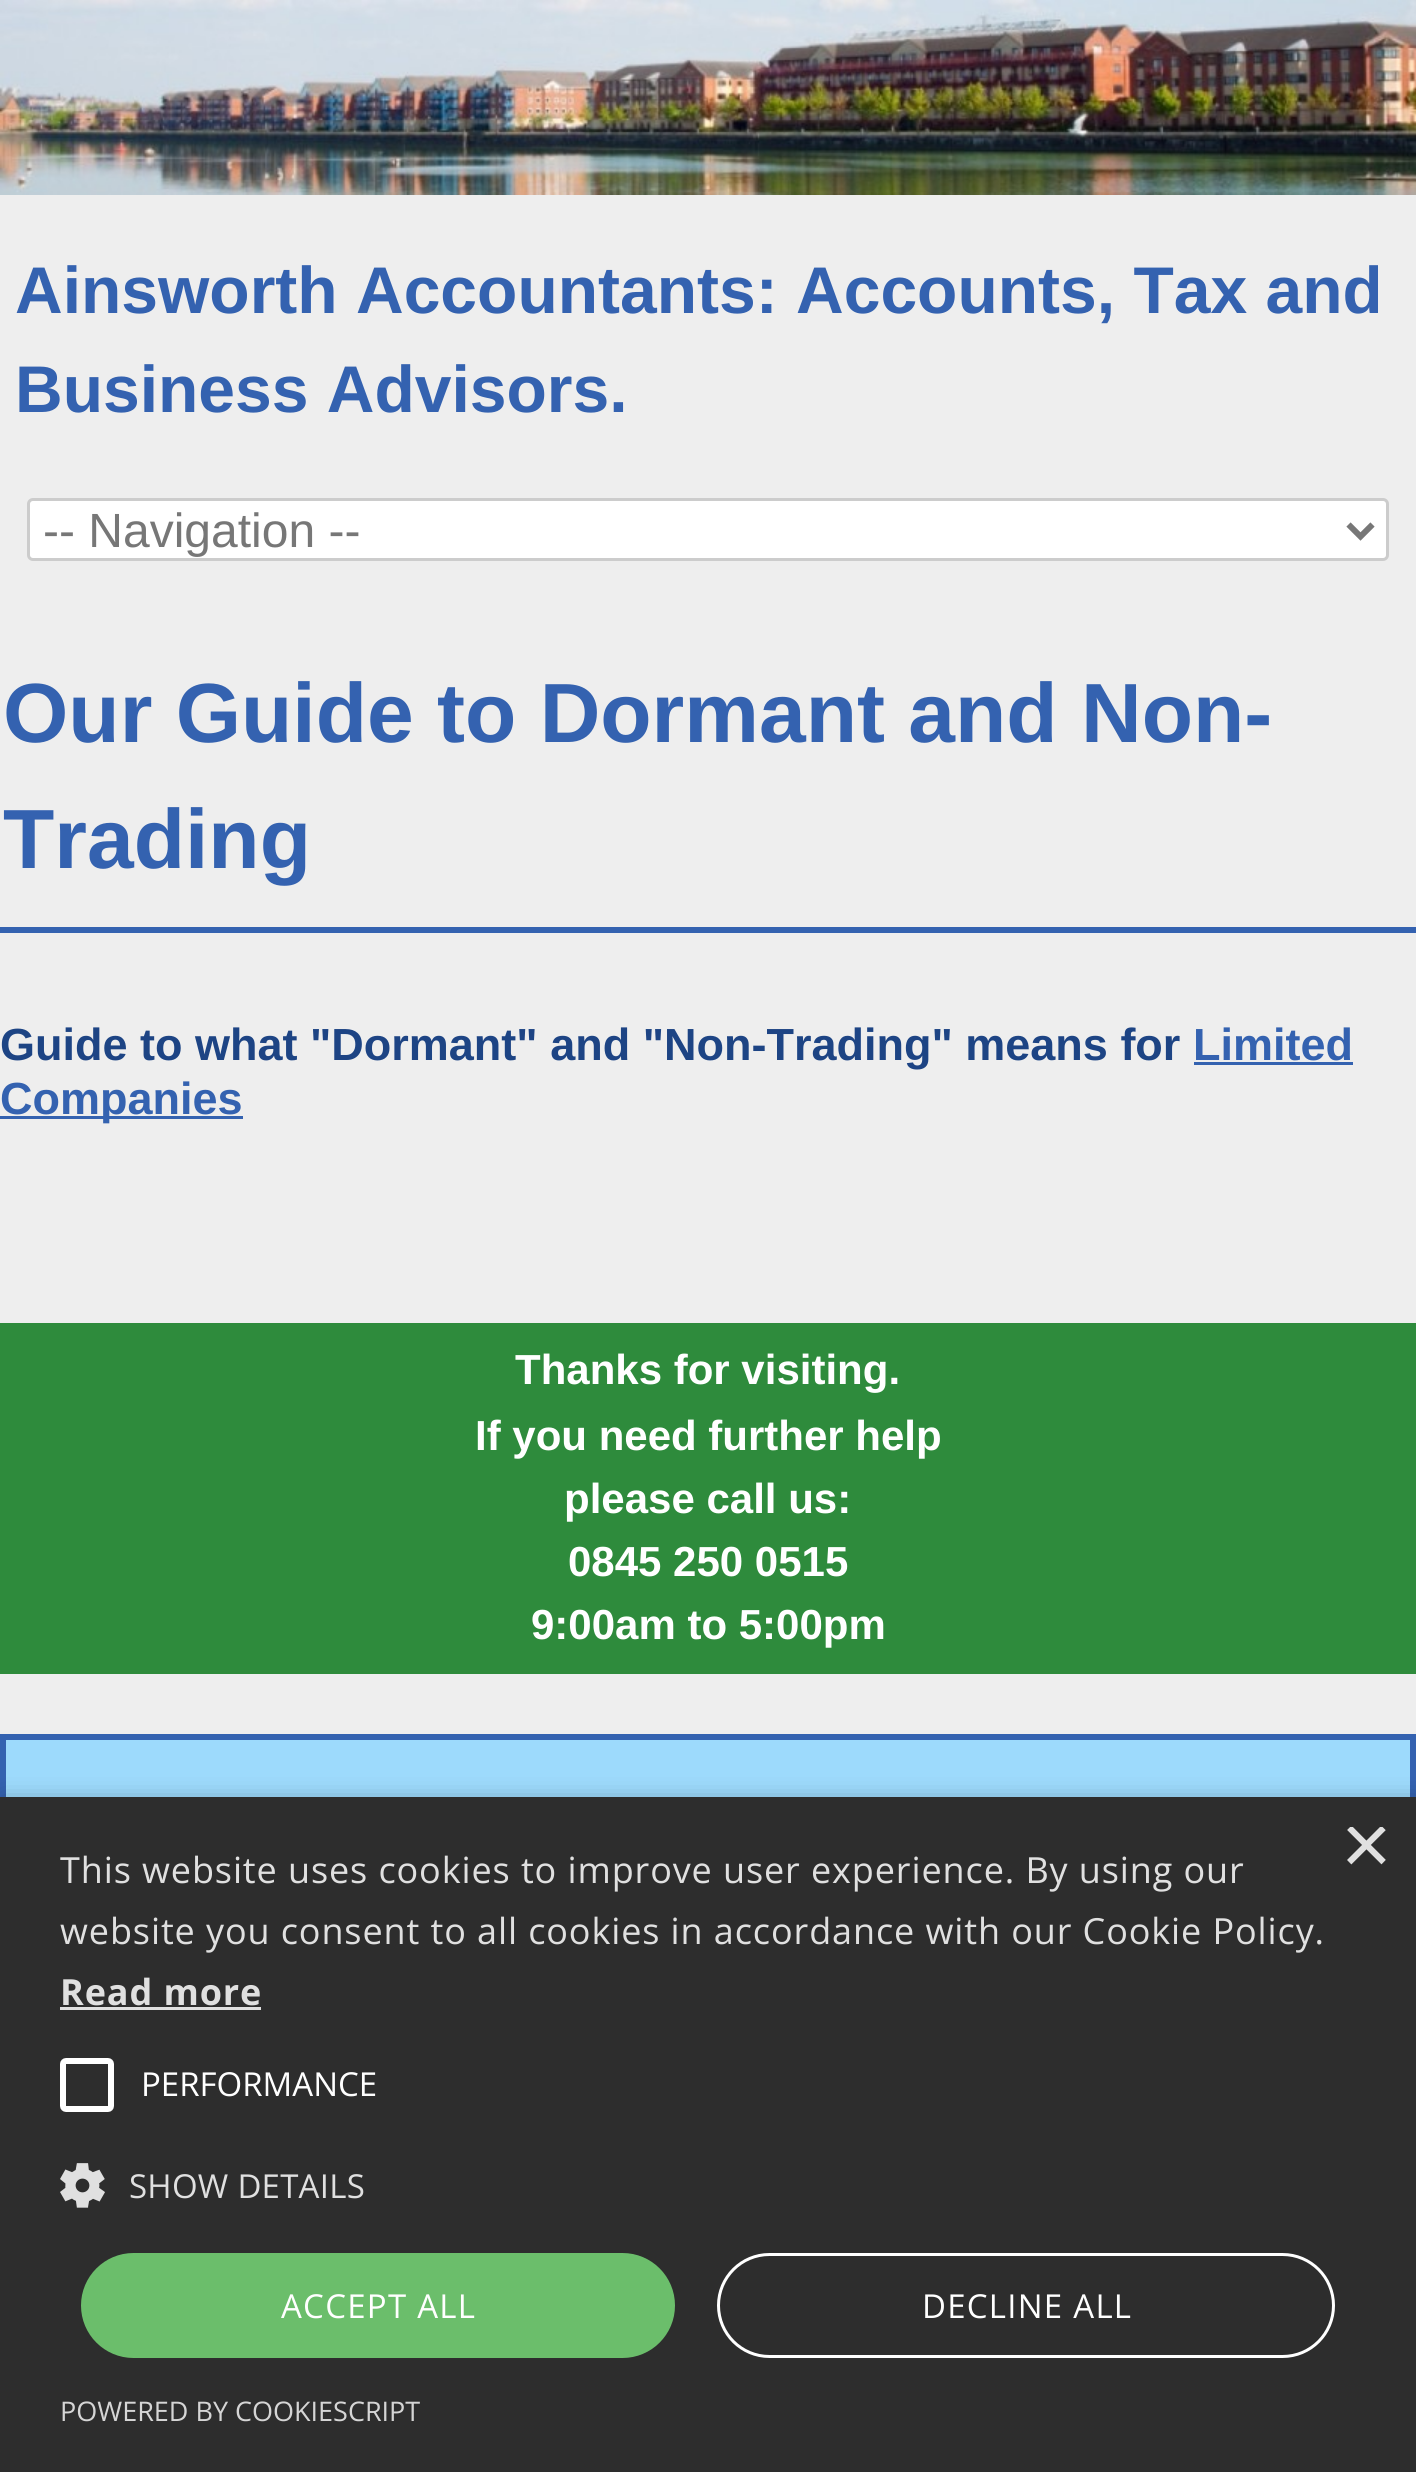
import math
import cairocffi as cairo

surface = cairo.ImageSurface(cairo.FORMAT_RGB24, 1416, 2472)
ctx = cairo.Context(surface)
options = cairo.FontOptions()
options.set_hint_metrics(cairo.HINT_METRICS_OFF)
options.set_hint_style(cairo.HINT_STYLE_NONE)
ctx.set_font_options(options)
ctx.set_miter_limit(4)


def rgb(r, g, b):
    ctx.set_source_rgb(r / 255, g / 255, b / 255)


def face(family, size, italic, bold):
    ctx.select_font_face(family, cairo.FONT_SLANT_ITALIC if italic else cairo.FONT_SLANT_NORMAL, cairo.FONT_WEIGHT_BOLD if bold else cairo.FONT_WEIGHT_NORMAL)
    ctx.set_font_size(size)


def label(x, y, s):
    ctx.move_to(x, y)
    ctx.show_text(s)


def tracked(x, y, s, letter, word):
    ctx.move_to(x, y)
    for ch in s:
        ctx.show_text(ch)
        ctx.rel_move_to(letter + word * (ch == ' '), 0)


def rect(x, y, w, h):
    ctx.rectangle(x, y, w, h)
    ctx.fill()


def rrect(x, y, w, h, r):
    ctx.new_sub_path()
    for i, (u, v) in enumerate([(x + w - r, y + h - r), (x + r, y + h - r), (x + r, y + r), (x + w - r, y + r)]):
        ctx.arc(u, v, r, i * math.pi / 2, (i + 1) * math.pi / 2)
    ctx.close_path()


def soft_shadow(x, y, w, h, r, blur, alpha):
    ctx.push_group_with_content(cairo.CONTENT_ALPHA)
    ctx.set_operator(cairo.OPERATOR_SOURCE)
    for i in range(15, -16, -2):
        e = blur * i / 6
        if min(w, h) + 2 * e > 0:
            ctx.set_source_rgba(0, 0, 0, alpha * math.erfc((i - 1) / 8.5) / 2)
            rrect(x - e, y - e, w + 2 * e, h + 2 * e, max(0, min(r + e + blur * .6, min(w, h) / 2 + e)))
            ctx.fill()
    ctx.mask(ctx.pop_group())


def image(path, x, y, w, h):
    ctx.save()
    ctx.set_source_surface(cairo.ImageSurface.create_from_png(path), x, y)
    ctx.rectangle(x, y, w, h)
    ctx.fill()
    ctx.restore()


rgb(238, 238, 238)
ctx.paint()
image('image0.png', 0, 0, 1416, 195)
face('Liberation Sans', 66, 0, 1)
rgb(52, 98, 176)
label(15, 313, 'Ainsworth Accountants: Accounts, Tax and')
label(15, 412, 'Business Advisors.')
rgb(255, 255, 255)
rrect(28.5, 499.5, 1359, 60, 4.5)
ctx.fill_preserve()
rgb(204, 204, 204)
ctx.set_line_width(3)
ctx.stroke()
ctx.new_path()
ctx.move_to(1348.5, 524.5)
ctx.line_to(1360.5, 536.5)
ctx.line_to(1372.5, 524.5)
rgb(119, 119, 119)
ctx.set_line_width(6)
ctx.stroke()
face('Liberation Sans', 48, 0, 0)
label(43, 547, '-- Navigation --')
rgb(52, 98, 176)
rect(0, 927, 1416, 6)
face('Liberation Sans', 84, 0, 1)
label(3, 742, 'Our Guide to Dormant and Non-')
label(3, 868, 'Trading')
face('Liberation Sans', 45, 0, 1)
rgb(29, 68, 132)
label(0, 1060, 'Guide to what "Dormant" and "Non-Trading" means for')
rgb(52, 98, 176)
label(1193, 1060, 'Limited')
rect(1194, 1062, 159, 3)
rect(0, 1116, 243, 3)
label(0, 1114, 'Companies')
rgb(46, 139, 60)
rect(0, 1323, 1416, 351)
face('Liberation Sans', 42, 0, 1)
rgb(255, 255, 255)
label(515, 1384, 'Thanks for visiting.')
label(475, 1450, 'If you need further help')
label(564, 1513, 'please call us:')
label(568, 1576, '0845 250 0515')
label(531, 1639, '9:00am to 5:00pm')
rgb(157, 218, 252)
rect(6, 1740, 1404, 57)
ctx.rectangle(3, 1737, 1410, 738)
rgb(52, 98, 176)
ctx.stroke()
rgb(0, 0, 0)
soft_shadow(3, 1803, 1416, 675, 0, 12, 0.35)
rgb(45, 45, 45)
rect(0, 1797, 1416, 675)
ctx.save()
ctx.rectangle(1341, 1827, 45, 45)
ctx.clip()
face('Liberation Sans', 87, 0, 0)
rgb(224, 224, 224)
label(1341, 1874, '×')
ctx.restore()
face('Open Sans', 36, 0, 0)
rgb(224, 224, 224)
tracked(60, 1883, 'This website uses cookies to improve user experience. By using our', 0.9, 0)
tracked(60, 1944, 'website you consent to all cookies in accordance with our Cookie Policy.', 0.9, 0)
face('Open Sans', 36, 0, 1)
tracked(60, 2005, 'Read more', 0.9, 0)
rect(60, 2007, 201, 3)
rrect(63, 2061, 48, 48, 3)
rgb(255, 255, 255)
ctx.stroke()
face('Open Sans', 33, 0, 0)
label(141, 2096, 'PERFORMANCE')
image('image1.png', 60, 2163, 45, 45)
rgb(224, 224, 224)
tracked(129, 2198, 'SHOW DETAILS', 0.25, 0)
rgb(107, 190, 107)
rrect(81, 2253, 594, 105, 52.5)
ctx.fill()
rgb(255, 255, 255)
tracked(281, 2318, 'ACCEPT ALL', 1.25, 0)
rrect(718.5, 2254.5, 615, 102, 51)
ctx.set_line_width(3)
ctx.stroke()
tracked(922, 2318, 'DECLINE ALL', 1.25, 0)
face('Open Sans', 27, 0, 0)
rgb(213, 213, 213)
label(60, 2421, 'POWERED BY COOKIESCRIPT')
surface.write_to_png('render.png')
